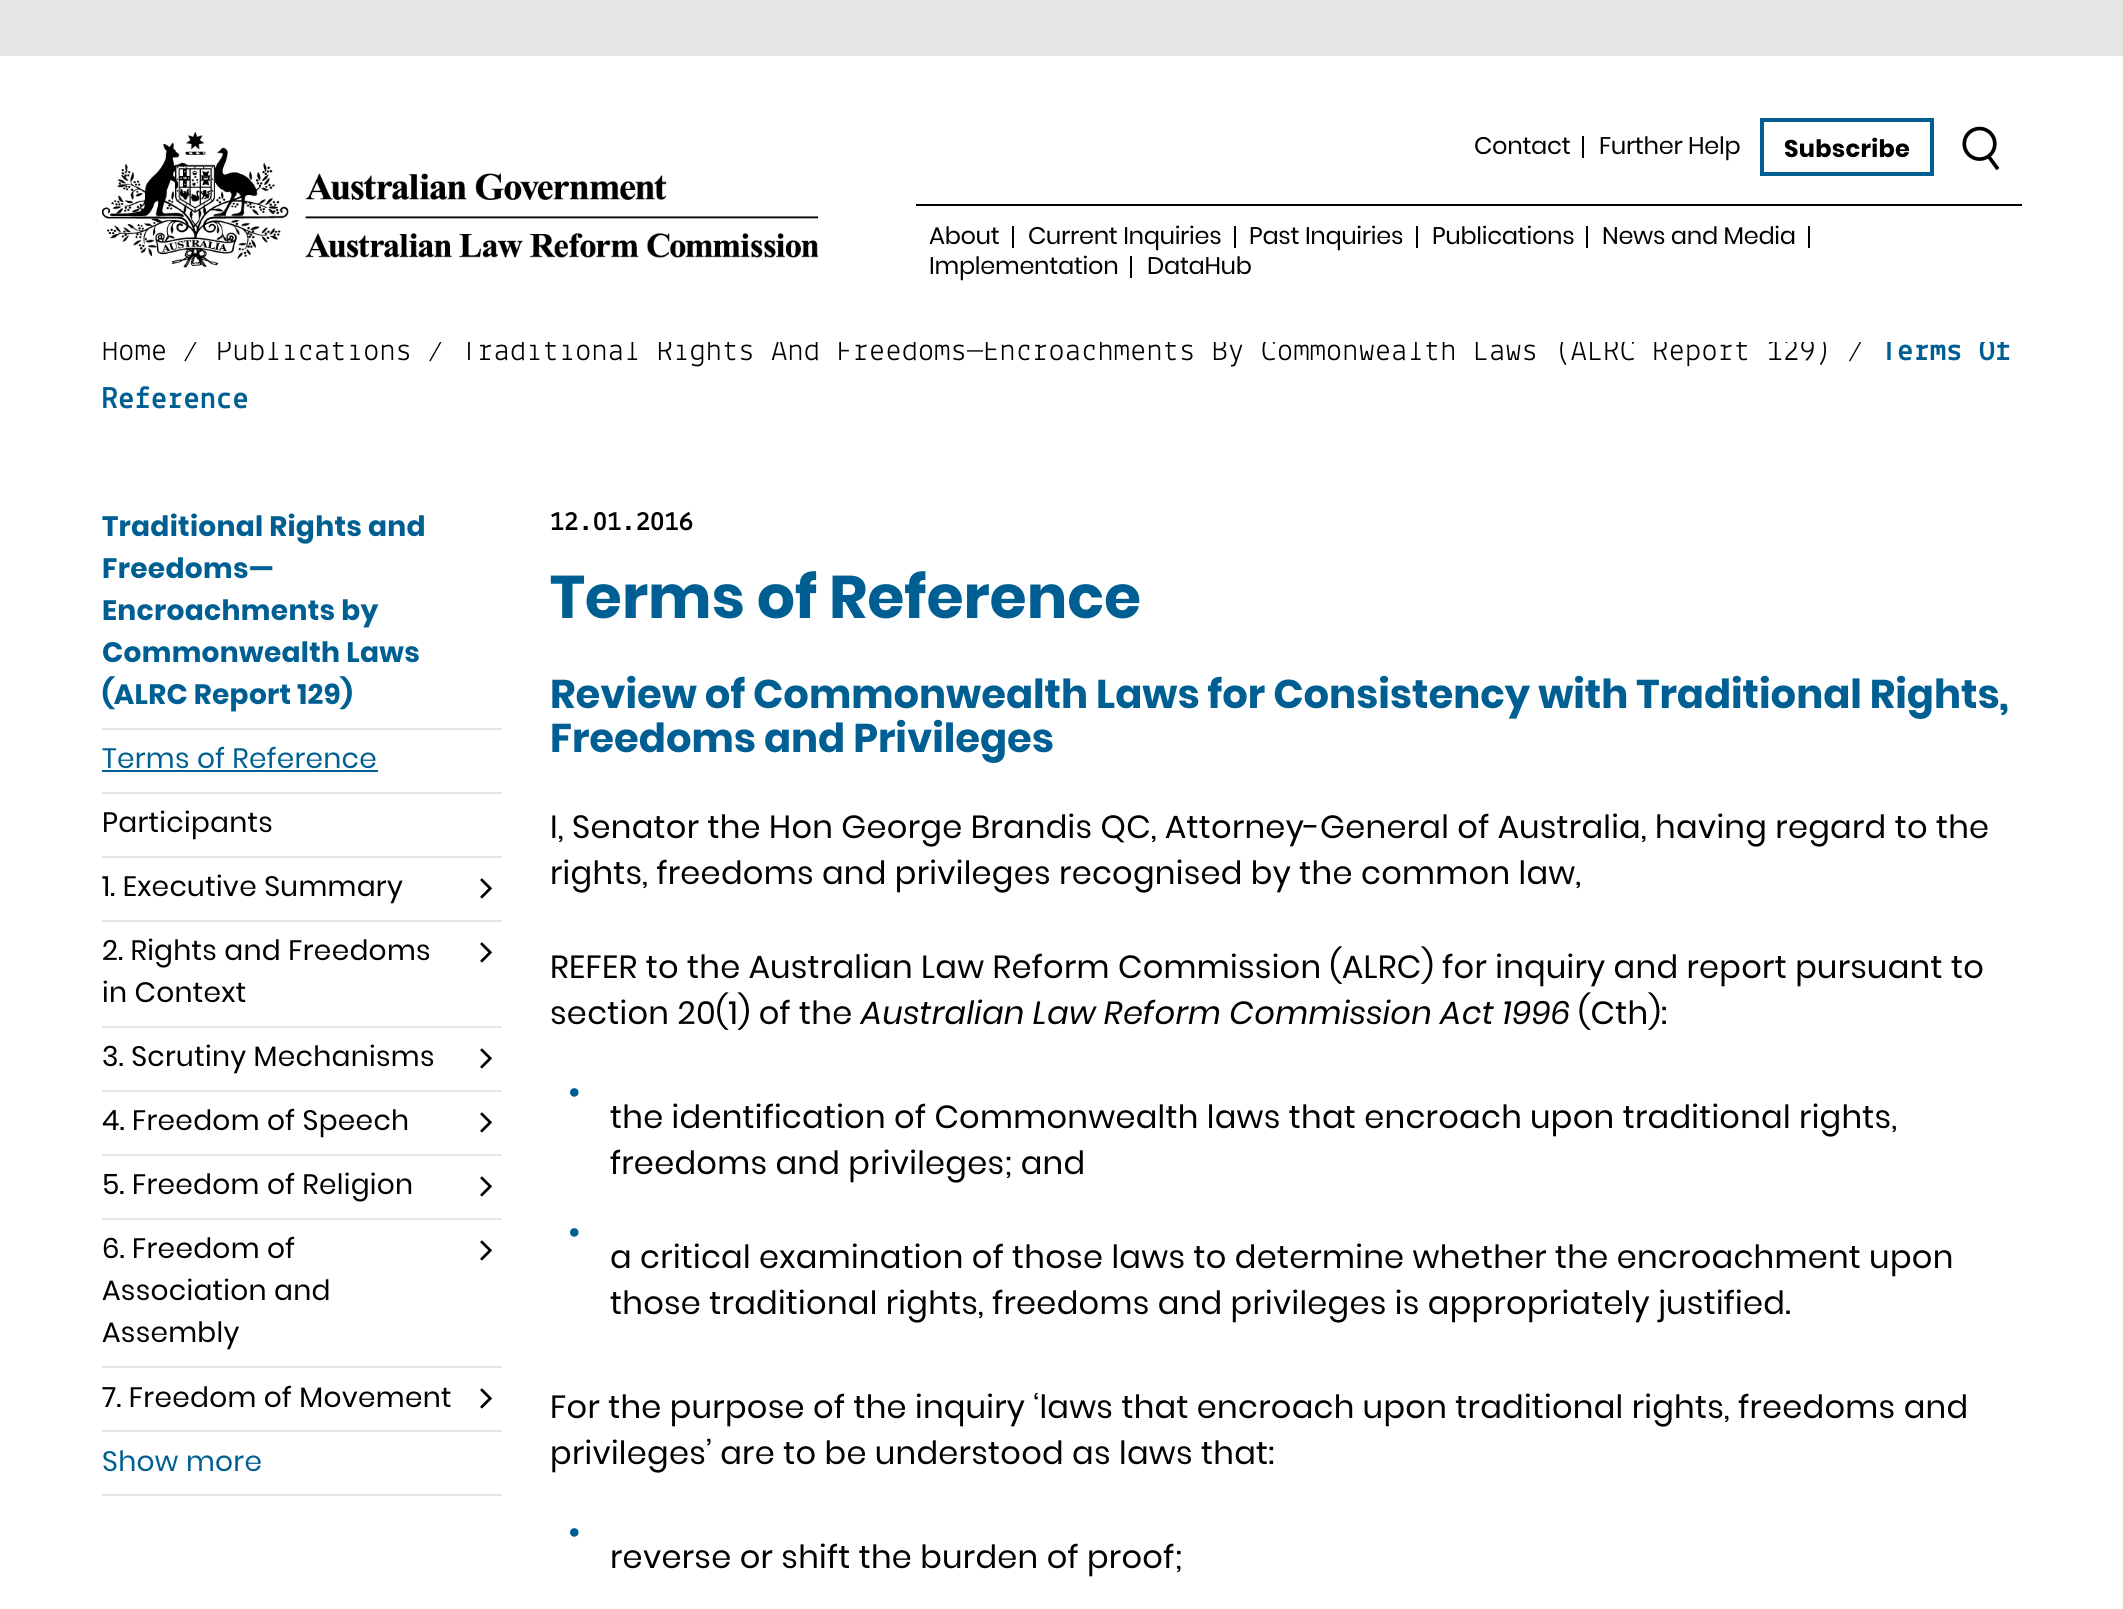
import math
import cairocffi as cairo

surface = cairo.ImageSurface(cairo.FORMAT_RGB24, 2123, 1609)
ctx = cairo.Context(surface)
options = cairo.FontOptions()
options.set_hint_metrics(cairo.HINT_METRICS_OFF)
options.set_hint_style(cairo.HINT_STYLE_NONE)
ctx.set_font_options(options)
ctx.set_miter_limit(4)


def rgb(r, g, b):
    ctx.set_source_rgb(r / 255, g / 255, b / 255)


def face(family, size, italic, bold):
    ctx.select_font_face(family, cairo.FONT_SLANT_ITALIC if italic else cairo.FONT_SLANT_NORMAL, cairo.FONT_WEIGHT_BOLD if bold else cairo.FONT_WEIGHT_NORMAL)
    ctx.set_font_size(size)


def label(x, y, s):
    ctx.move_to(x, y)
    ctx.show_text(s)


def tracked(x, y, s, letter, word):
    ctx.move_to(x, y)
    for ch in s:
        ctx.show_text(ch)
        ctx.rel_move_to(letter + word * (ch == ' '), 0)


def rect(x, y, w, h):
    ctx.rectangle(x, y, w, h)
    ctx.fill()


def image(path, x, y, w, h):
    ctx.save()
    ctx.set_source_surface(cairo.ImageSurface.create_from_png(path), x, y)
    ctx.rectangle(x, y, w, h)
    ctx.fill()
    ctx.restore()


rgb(255, 255, 255)
ctx.paint()
rgb(229, 229, 229)
rect(0, 0, 2123, 56)
face('Lekton', 32, 0, 0)
rgb(0, 0, 0)
tracked(102, 360, 'Home / Publications / Traditional Rights And Freedoms—Encroachments By Commonwealth Laws (ALRC Report 129) /', 0.32, 0)
face('Lekton', 32, 0, 1)
rgb(0, 95, 146)
tracked(1881, 360, 'Terms Of', 0.32, 0)
rgb(255, 255, 255)
rect(103, 334, 1907, 8)
image('image0.png', 102, 132, 716, 136)
rgb(0, 0, 0)
rect(916, 204, 1106, 2)
face('Poppins', 24, 0, 0)
tracked(1474, 154, 'Contact', -0.25, 0)
rect(1582, 136, 2, 22)
tracked(1599, 154, 'Further Help', -0.25, 0)
ctx.rectangle(1762, 120, 170, 54)
rgb(0, 95, 146)
ctx.set_line_width(4)
ctx.stroke()
face('Poppins', 24, 0, 1)
rgb(0, 0, 0)
tracked(1784, 157, 'Subscribe', 0.32, 0)
image('image1.png', 1962, 126, 38, 45)
face('Poppins', 24, 0, 0)
tracked(929, 244, 'About', -0.25, 0)
rect(1012, 226, 2, 22)
tracked(1028, 244, 'Current Inquiries', -0.25, 0)
rect(1234, 226, 2, 22)
tracked(1249, 244, 'Past Inquiries', -0.25, 0)
rect(1416, 226, 2, 22)
tracked(1432, 244, 'Publications', -0.25, 0)
rect(1586, 226, 2, 22)
tracked(1602, 244, 'News and Media', -0.25, 0)
rect(1808, 226, 2, 22)
tracked(929, 274, 'Implementation', -0.25, 0)
rect(1130, 256, 2, 22)
tracked(1147, 274, 'DataHub', -0.25, 0)
face('Lekton', 32, 0, 1)
rgb(0, 95, 146)
tracked(102, 408, 'Reference', 0.32, 0)
rgb(229, 229, 229)
rect(102, 728, 400, 2)
face('Poppins', 28, 0, 1)
rgb(0, 95, 146)
tracked(102, 536, 'Traditional Rights and', 0.32, 0)
tracked(102, 578, 'Freedoms—', 0.32, 0)
tracked(102, 620, 'Encroachments by', 0.32, 0)
tracked(102, 662, 'Commonwealth Laws', 0.32, 0)
tracked(102, 704, '(ALRC Report 129)', 0.32, 0)
rgb(229, 229, 229)
rect(102, 792, 400, 2)
face('Poppins', 28, 0, 0)
rgb(0, 95, 146)
tracked(102, 768, 'Terms of Reference', 0.32, 0)
rect(102, 770, 276, 2)
rgb(229, 229, 229)
rect(102, 856, 400, 2)
rgb(0, 0, 0)
tracked(102, 832, 'Participants', 0.32, 0)
rgb(229, 229, 229)
rect(102, 920, 400, 2)
rgb(0, 0, 0)
tracked(102, 896, '1. Executive Summary', 0.32, 0)
image('image2.png', 480, 878, 12, 21)
rgb(229, 229, 229)
rect(102, 1026, 400, 2)
rgb(0, 0, 0)
tracked(102, 960, '2. Rights and Freedoms', 0.32, 0)
tracked(102, 1002, 'in Context', 0.32, 0)
image('image2.png', 480, 942, 12, 21)
rgb(229, 229, 229)
rect(102, 1090, 400, 2)
rgb(0, 0, 0)
tracked(102, 1066, '3. Scrutiny Mechanisms', 0.32, 0)
image('image2.png', 480, 1048, 12, 21)
rgb(229, 229, 229)
rect(102, 1154, 400, 2)
rgb(0, 0, 0)
tracked(102, 1130, '4. Freedom of Speech', 0.32, 0)
image('image2.png', 480, 1112, 12, 21)
rgb(229, 229, 229)
rect(102, 1218, 400, 2)
rgb(0, 0, 0)
tracked(102, 1194, '5. Freedom of Religion', 0.32, 0)
image('image2.png', 480, 1176, 12, 21)
rgb(229, 229, 229)
rect(102, 1366, 400, 2)
rgb(0, 0, 0)
tracked(102, 1258, '6. Freedom of', 0.32, 0)
tracked(102, 1300, 'Association and', 0.32, 0)
tracked(102, 1342, 'Assembly', 0.32, 0)
image('image2.png', 480, 1240, 12, 21)
rgb(229, 229, 229)
rect(102, 1430, 400, 2)
rgb(0, 0, 0)
tracked(102, 1407, '7. Freedom of Movement', 0.32, 0)
image('image2.png', 480, 1388, 12, 21)
rgb(229, 229, 229)
rect(102, 1494, 400, 2)
rgb(0, 95, 146)
tracked(102, 1471, 'Show more', 0.32, 0)
face('Lekton', 28, 0, 1)
rgb(0, 0, 0)
tracked(550, 530, '12.01.2016', 0.32, 0)
face('Poppins', 60, 0, 1)
rgb(0, 95, 146)
label(550, 618, 'Terms of Reference')
face('Poppins', 40, 0, 1)
label(550, 708, 'Review of Commonwealth Laws for Consistency with Traditional Rights,')
label(550, 752, 'Freedoms and Privileges')
face('Poppins', 32, 0, 0)
rgb(0, 0, 0)
tracked(550, 838, 'I, Senator the Hon George Brandis QC, Attorney-General of Australia, having regard to the', 0.32, 0)
tracked(550, 884, 'rights, freedoms and privileges recognised by the common law,', 0.32, 0)
tracked(550, 978, 'REFER to the Australian Law Reform Commission (ALRC) for inquiry and report pursuant to', 0.32, 0)
tracked(550, 1024, 'section 20(1) of the', 0.32, 0)
face('Poppins', 32, 1, 0)
tracked(861, 1024, 'Australian Law Reform Commission Act 1996', 0.32, 0)
face('Poppins', 32, 0, 0)
tracked(1578, 1024, '(Cth):', 0.32, 0)
image('image3.png', 570, 1088, 9, 9)
tracked(610, 1128, 'the identification of Commonwealth laws that encroach upon traditional rights,', 0.32, 0)
tracked(610, 1174, 'freedoms and privileges; and', 0.32, 0)
image('image3.png', 570, 1228, 9, 9)
tracked(610, 1268, 'a critical examination of those laws to determine whether the encroachment upon', 0.32, 0)
tracked(610, 1314, 'those traditional rights, freedoms and privileges is appropriately justified.', 0.32, 0)
tracked(550, 1418, 'For the purpose of the inquiry ‘laws that encroach upon traditional rights, freedoms and', 0.32, 0)
tracked(550, 1464, 'privileges’ are to be understood as laws that:', 0.32, 0)
image('image3.png', 570, 1528, 9, 9)
tracked(610, 1568, 'reverse or shift the burden of proof;', 0.32, 0)
surface.write_to_png('render.png')
